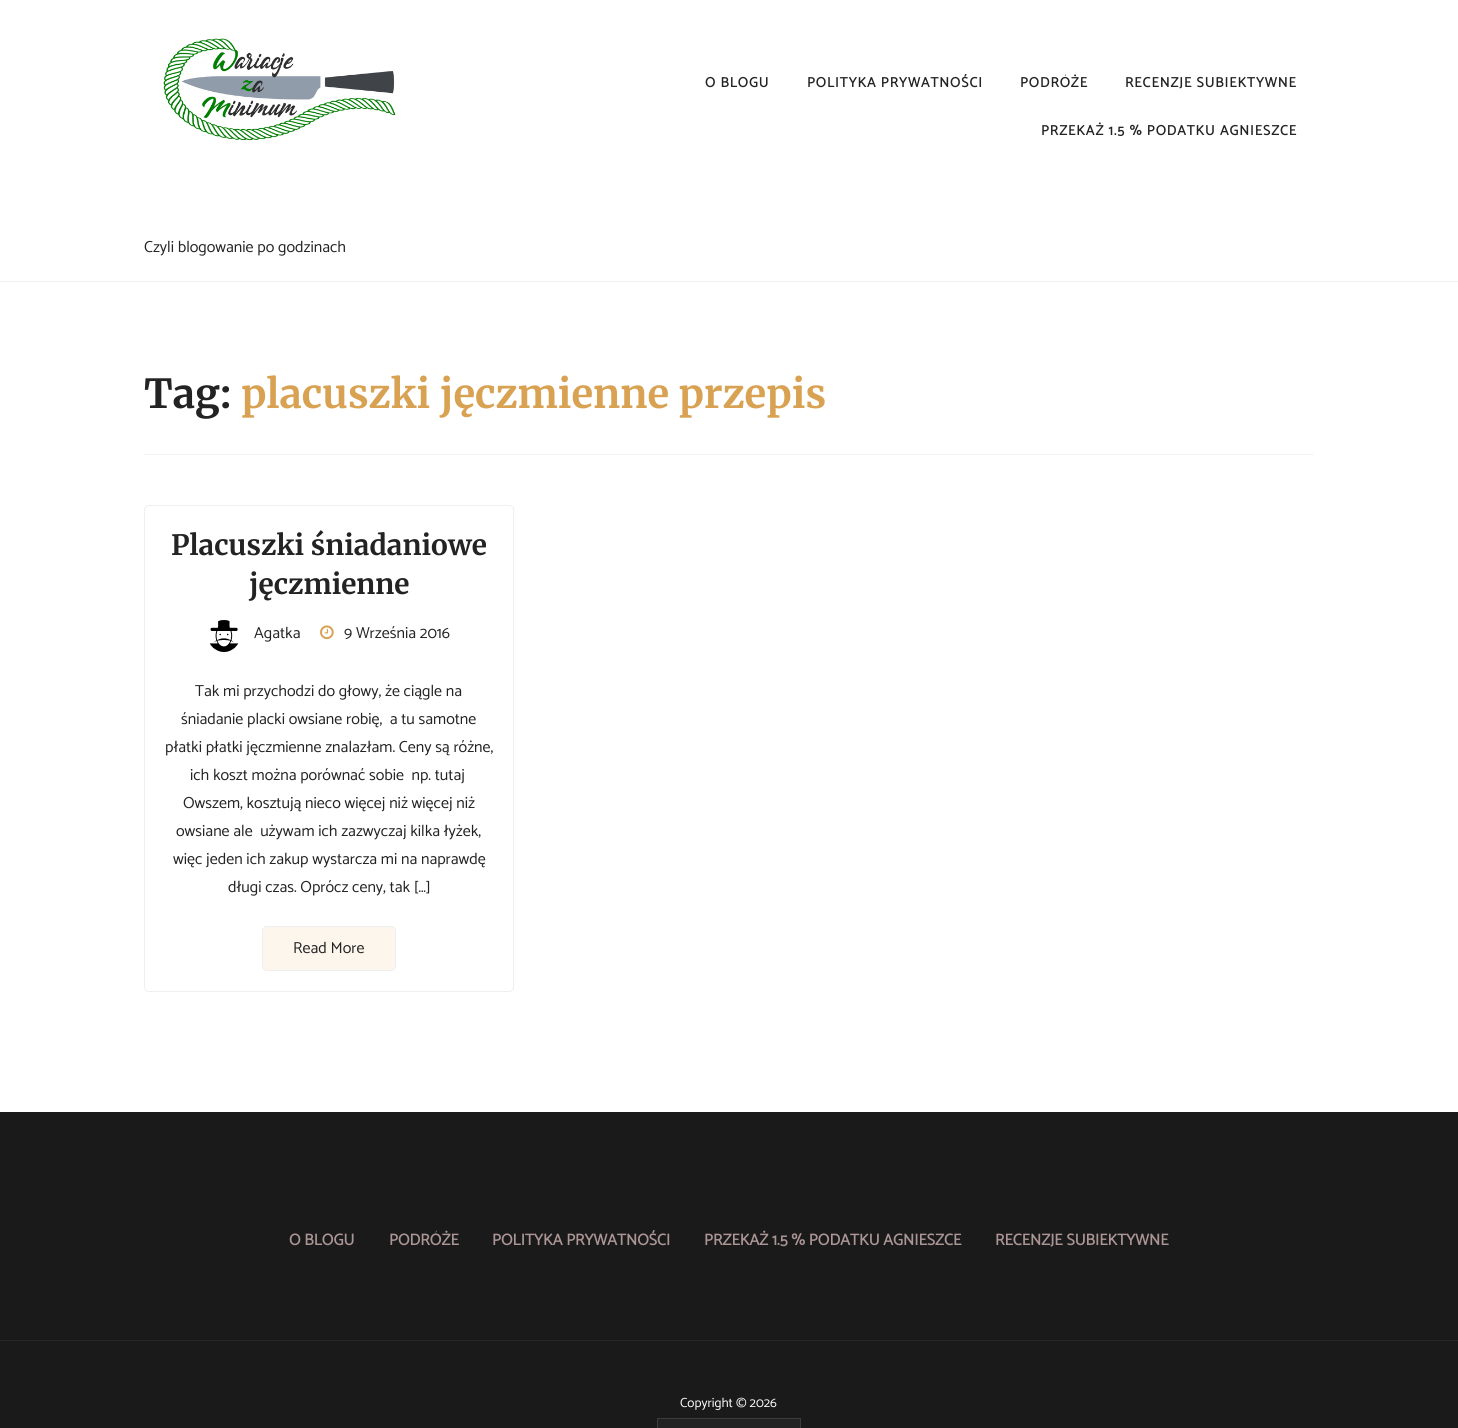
import math
import cairocffi as cairo

surface = cairo.ImageSurface(cairo.FORMAT_RGB24, 1458, 1428)
ctx = cairo.Context(surface)
options = cairo.FontOptions()
options.set_hint_metrics(cairo.HINT_METRICS_OFF)
options.set_hint_style(cairo.HINT_STYLE_NONE)
ctx.set_font_options(options)
ctx.set_miter_limit(4)


def rgb(r, g, b):
    ctx.set_source_rgb(r / 255, g / 255, b / 255)


def face(family, size, italic, bold):
    ctx.select_font_face(family, cairo.FONT_SLANT_ITALIC if italic else cairo.FONT_SLANT_NORMAL, cairo.FONT_WEIGHT_BOLD if bold else cairo.FONT_WEIGHT_NORMAL)
    ctx.set_font_size(size)


def label(x, y, s):
    ctx.move_to(x, y)
    ctx.show_text(s)


def tracked(x, y, s, letter, word):
    ctx.move_to(x, y)
    for ch in s:
        ctx.show_text(ch)
        ctx.rel_move_to(letter + word * (ch == ' '), 0)


def rect(x, y, w, h):
    ctx.rectangle(x, y, w, h)
    ctx.fill()


def rrect(x, y, w, h, r):
    ctx.new_sub_path()
    for i, (u, v) in enumerate([(x + w - r, y + h - r), (x + r, y + h - r), (x + r, y + r), (x + w - r, y + r)]):
        ctx.arc(u, v, r, i * math.pi / 2, (i + 1) * math.pi / 2)
    ctx.close_path()


def image(path, x, y, w, h):
    ctx.save()
    ctx.set_source_surface(cairo.ImageSurface.create_from_png(path), x, y)
    ctx.rectangle(x, y, w, h)
    ctx.fill()
    ctx.restore()


rgb(255, 255, 255)
ctx.paint()
rgb(239, 239, 239)
rect(0, 281, 1458, 1)
face('Catamaran', 14, 0, 1)
rgb(36, 35, 35)
tracked(705, 87, 'O BLOGU', 1, 0)
tracked(807, 87, 'POLITYKA PRYWATNOŚCI', 1, 0)
tracked(1020, 87, 'PODRÓŻE', 1, 0)
tracked(1125, 87, 'RECENZJE SUBIEKTYWNE', 1, 0)
tracked(1041, 135, 'PRZEKAŻ 1.5 % PODATKU AGNIESZCE', 1, 0)
image('image0.png', 163, 38, 233, 103)
face('Catamaran Thin', 16, 0, 0)
label(144, 252, 'Czyli blogowanie po godzinach')
rgb(243, 243, 248)
rect(144, 454, 1170, 1)
face('Merriweather', 40, 0, 1)
rgb(36, 35, 35)
label(144, 408, 'Tag:')
rgb(216, 162, 82)
label(241, 408, 'placuszki jęczmienne przepis')
rrect(144.5, 505.5, 369, 486, 4.5)
rgb(239, 239, 239)
ctx.set_line_width(1)
ctx.stroke()
face('Merriweather', 28, 0, 1)
rgb(36, 35, 35)
label(171, 555, 'Placuszki śniadaniowe')
label(249, 594, 'jęczmienne')
image('image1.png', 209, 620, 30, 32)
face('Catamaran Thin', 16, 0, 0)
label(254, 638, 'Agatka')
image('image2.png', 320, 625, 14, 15)
label(344, 638, '9 Września 2016')
label(195, 696, 'Tak mi przychodzi do głowy, że ciągle na')
label(181, 724, 'śniadanie placki owsiane robię,  a tu samotne')
label(165, 752, 'płatki płatki jęczmienne znalazłam. Ceny są różne,')
label(190, 780, 'ich koszt można porównać sobie  np. tutaj')
label(183, 808, 'Owszem, kosztują nieco więcej niż więcej niż')
label(176, 836, 'owsiane ale  używam ich zazwyczaj kilka łyżek,')
label(173, 864, 'więc jeden ich zakup wystarcza mi na naprawdę')
label(228, 892, 'długi czas. Oprócz ceny, tak […]')
rgb(252, 246, 237)
rrect(262.5, 926.5, 133, 44, 4.5)
ctx.fill_preserve()
rgb(239, 239, 239)
ctx.stroke()
rgb(36, 35, 35)
label(293, 953, 'Read More')
rgb(26, 26, 26)
rect(0, 1112, 1458, 228)
face('Catamaran', 16, 0, 1)
rgb(171, 149, 149)
label(289, 1245, 'O BLOGU')
label(389, 1245, 'PODRÓŻE')
label(492, 1245, 'POLITYKA PRYWATNOŚCI')
label(704, 1245, 'PRZEKAŻ 1.5 % PODATKU AGNIESZCE')
label(995, 1245, 'RECENZJE SUBIEKTYWNE')
rgb(26, 26, 26)
rect(0, 1341, 1458, 87)
rgb(38, 38, 38)
rect(0, 1340, 1458, 1)
face('Catamaran Thin', 13.25, 0, 0)
rgb(255, 255, 255)
label(680, 1407, 'Copyright © 2026')
rgb(60, 60, 60)
rect(657, 1418, 144, 1)
rect(657, 1418, 1, 10)
rgb(35, 34, 34)
rect(658, 1419, 142, 9)
rgb(60, 60, 60)
rect(800, 1418, 1, 10)
surface.write_to_png('render.png')
